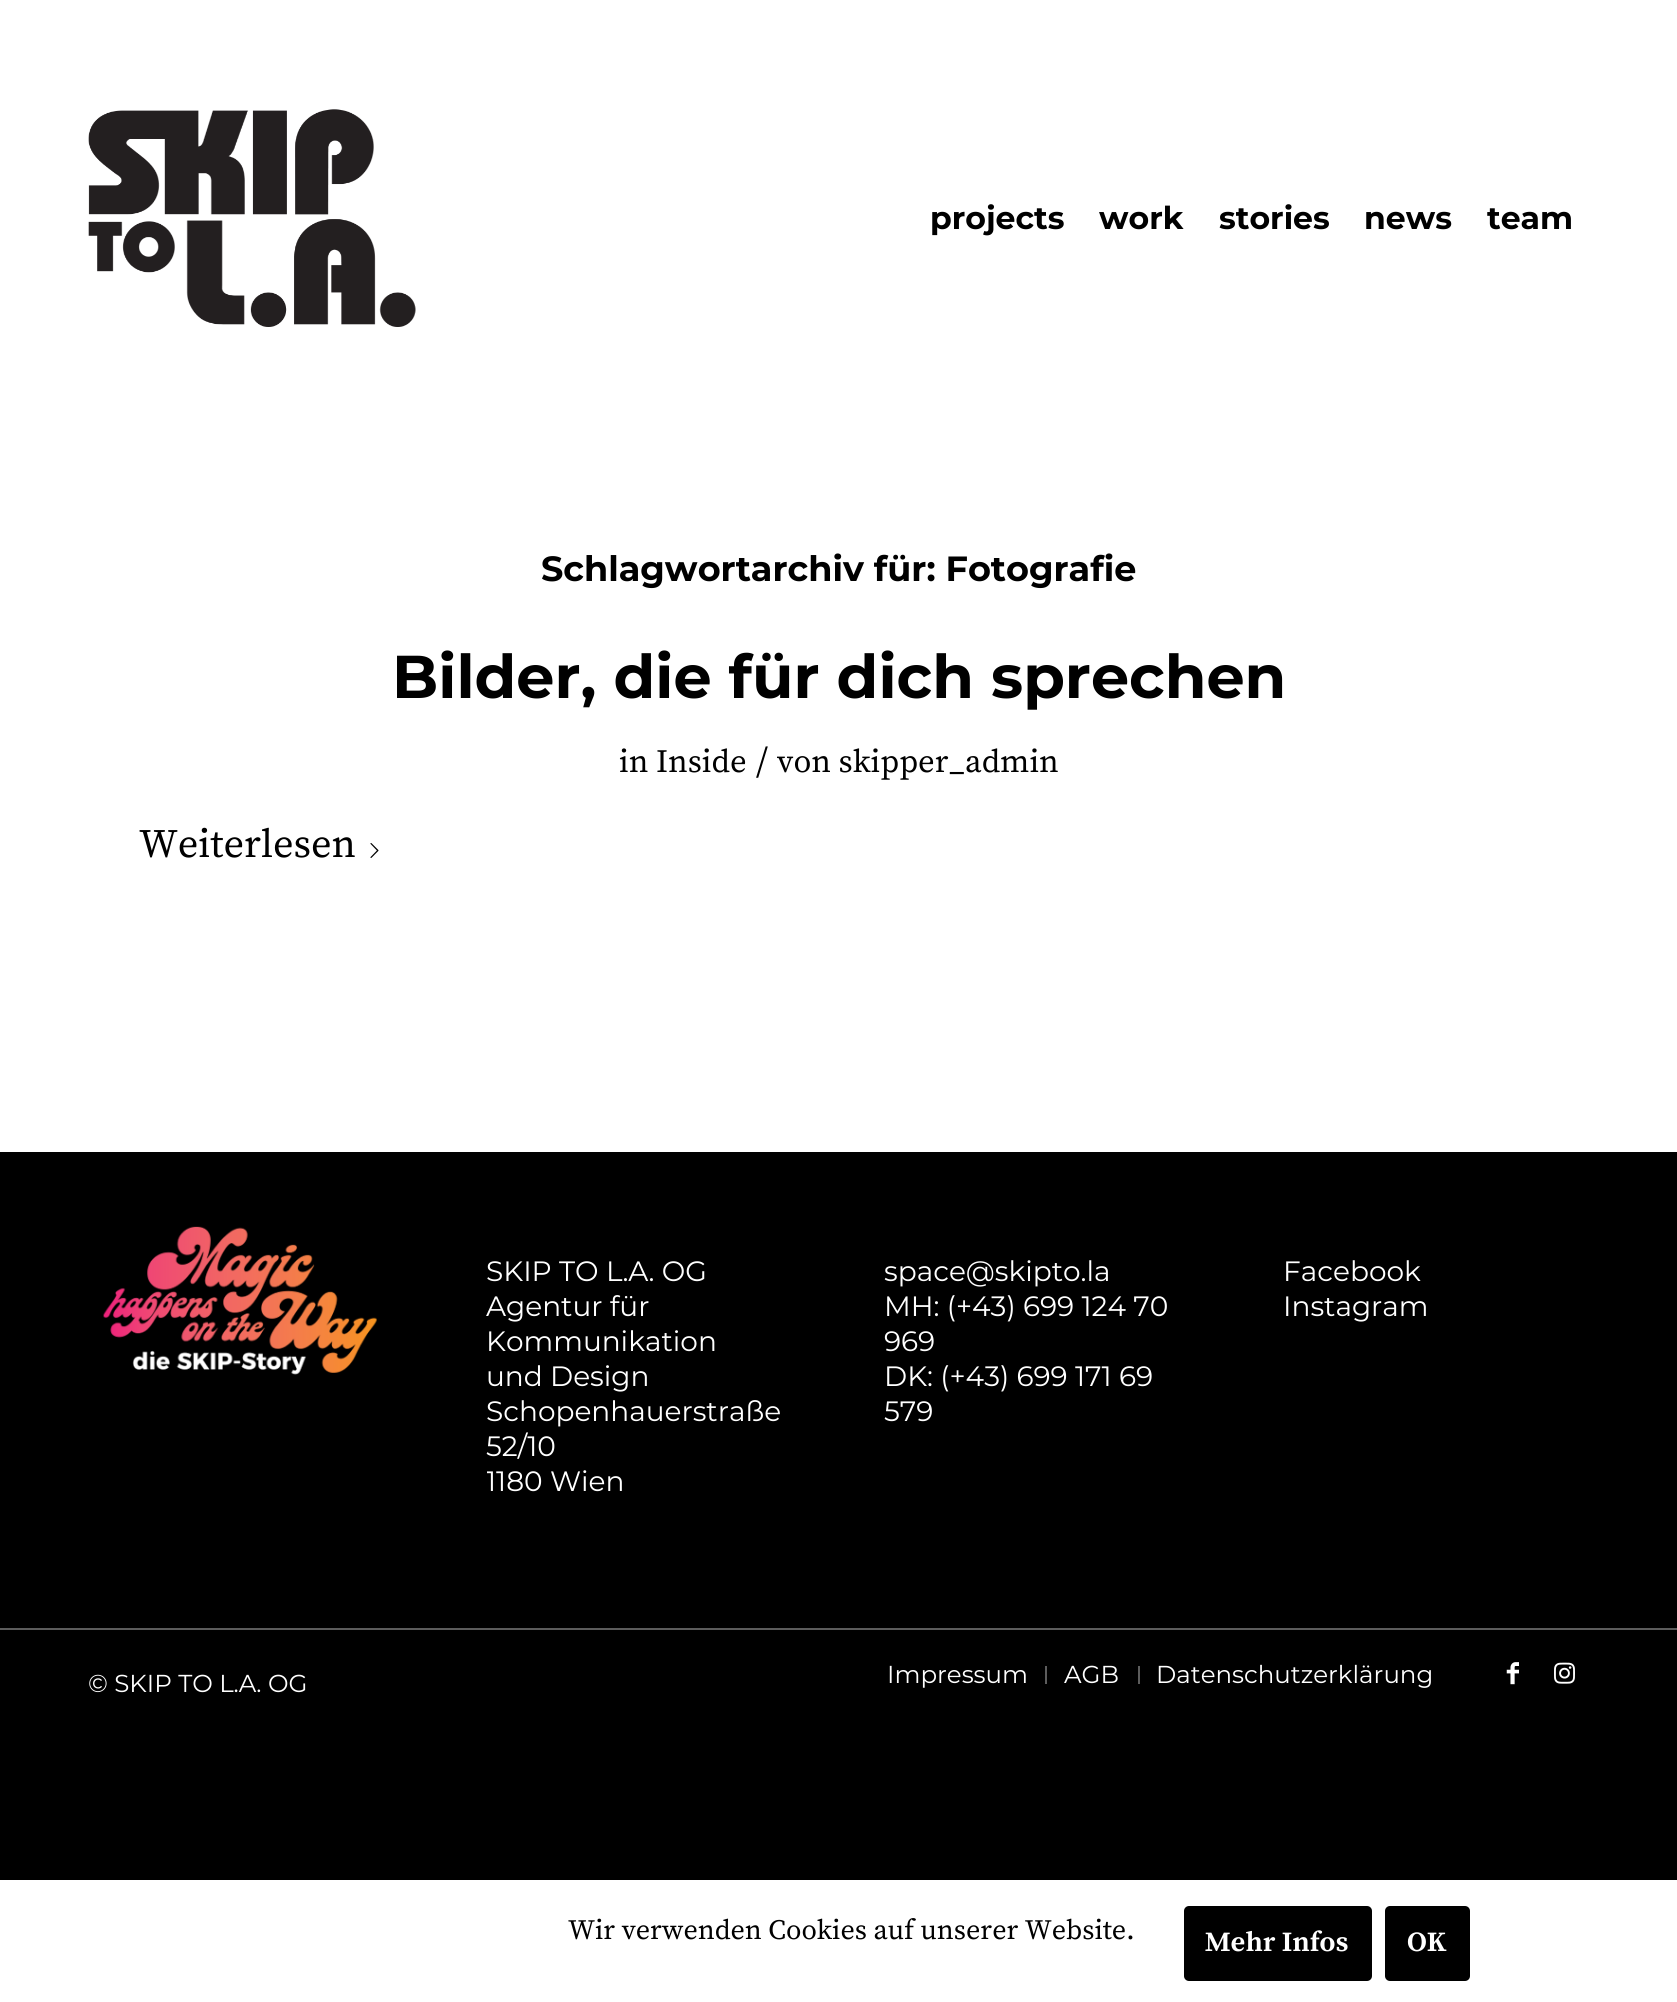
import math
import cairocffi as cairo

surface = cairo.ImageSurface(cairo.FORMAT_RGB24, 1677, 2002)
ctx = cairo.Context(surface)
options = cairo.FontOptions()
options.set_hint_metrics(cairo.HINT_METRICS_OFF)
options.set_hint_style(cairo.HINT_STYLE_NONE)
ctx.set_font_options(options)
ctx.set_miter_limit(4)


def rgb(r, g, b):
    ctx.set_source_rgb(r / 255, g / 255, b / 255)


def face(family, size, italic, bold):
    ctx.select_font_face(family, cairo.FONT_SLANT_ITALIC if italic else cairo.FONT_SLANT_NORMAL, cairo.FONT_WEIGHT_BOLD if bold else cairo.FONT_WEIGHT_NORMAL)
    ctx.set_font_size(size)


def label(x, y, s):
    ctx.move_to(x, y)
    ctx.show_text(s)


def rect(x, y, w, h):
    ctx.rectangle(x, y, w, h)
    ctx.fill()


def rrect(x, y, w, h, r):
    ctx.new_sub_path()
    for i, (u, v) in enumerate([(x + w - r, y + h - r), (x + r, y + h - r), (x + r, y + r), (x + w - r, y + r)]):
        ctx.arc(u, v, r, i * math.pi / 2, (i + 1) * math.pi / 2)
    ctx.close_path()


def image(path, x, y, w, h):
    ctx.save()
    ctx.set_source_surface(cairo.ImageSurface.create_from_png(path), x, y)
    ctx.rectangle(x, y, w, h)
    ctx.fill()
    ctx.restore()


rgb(0, 0, 0)
ctx.paint()
rgb(255, 255, 255)
rect(0, 0, 1677, 1152)
image('image0.png', 88, 109, 328, 218)
face('Montserrat', 31.5, 0, 1)
rgb(0, 0, 0)
label(930, 229, 'projects')
label(1099, 229, 'work')
label(1219, 229, 'stories')
label(1364, 229, 'news')
label(1487, 229, 'team')
face('Montserrat', 35, 0, 1)
label(541, 581, 'Schlagwortarchiv für: Fotografie')
face('Montserrat', 60.4, 0, 1)
label(392, 698, 'Bilder, die für dich sprechen')
face('Source Serif Pro', 32.5, 0, 0)
label(619, 772, 'in Inside')
face('Source Serif Pro', 36, 0, 0)
label(756, 772, '/')
face('Source Serif Pro', 32.5, 0, 0)
label(777, 772, 'von skipper_admin')
face('Source Serif Pro', 40.25, 0, 0)
label(139, 857, 'Weiterlesen')
image('image1.png', 370, 843, 9, 15)
image('image2.png', 103, 1226, 274, 149)
face('Montserrat', 28, 0, 0)
rgb(255, 255, 255)
label(486, 1281, 'SKIP TO L.A. OG')
label(486, 1316, 'Agentur für')
label(486, 1351, 'Kommunikation')
label(486, 1386, 'und Design')
label(486, 1421, 'Schopenhauerstraße')
label(486, 1456, '52/10')
ctx.save()
ctx.rectangle(487, 1232, 308, 292)
ctx.clip()
label(486, 1491, '1180 Wien')
ctx.restore()
label(884, 1281, 'space@skipto.la')
label(884, 1316, 'MH: (+43) 699 124 70')
label(884, 1351, '969')
label(884, 1386, 'DK: (+43) 699 171 69')
label(884, 1421, '579')
label(1283, 1281, 'Facebook')
label(1283, 1316, 'Instagram')
rgb(92, 92, 92)
rect(0, 1628, 1677, 2)
face('Montserrat', 24.5, 0, 0)
rgb(255, 255, 255)
label(88, 1692, '© SKIP TO L.A. OG')
label(887, 1683, 'Impressum')
rgb(92, 92, 92)
rect(1045, 1666, 2, 18)
rgb(255, 255, 255)
label(1064, 1683, 'AGB')
rgb(92, 92, 92)
rect(1138, 1666, 2, 18)
rgb(255, 255, 255)
label(1156, 1683, 'Datenschutzerklärung')
image('image3.png', 1506, 1662, 13, 23)
image('image4.png', 1554, 1662, 21, 22)
rect(0, 1880, 1677, 122)
face('Source Serif Pro', 28, 0, 0)
rgb(0, 0, 0)
label(568, 1939, 'Wir verwenden Cookies auf unserer Website.')
rrect(1182, 1904, 192, 79, 7)
ctx.fill_preserve()
rgb(255, 255, 255)
ctx.set_line_width(4)
ctx.stroke()
face('Source Serif Pro', 28, 0, 1)
label(1205, 1951, 'Mehr Infos')
rgb(0, 0, 0)
rrect(1383, 1904, 89, 79, 7)
ctx.fill_preserve()
rgb(255, 255, 255)
ctx.stroke()
label(1407, 1951, 'OK')
surface.write_to_png('render.png')
